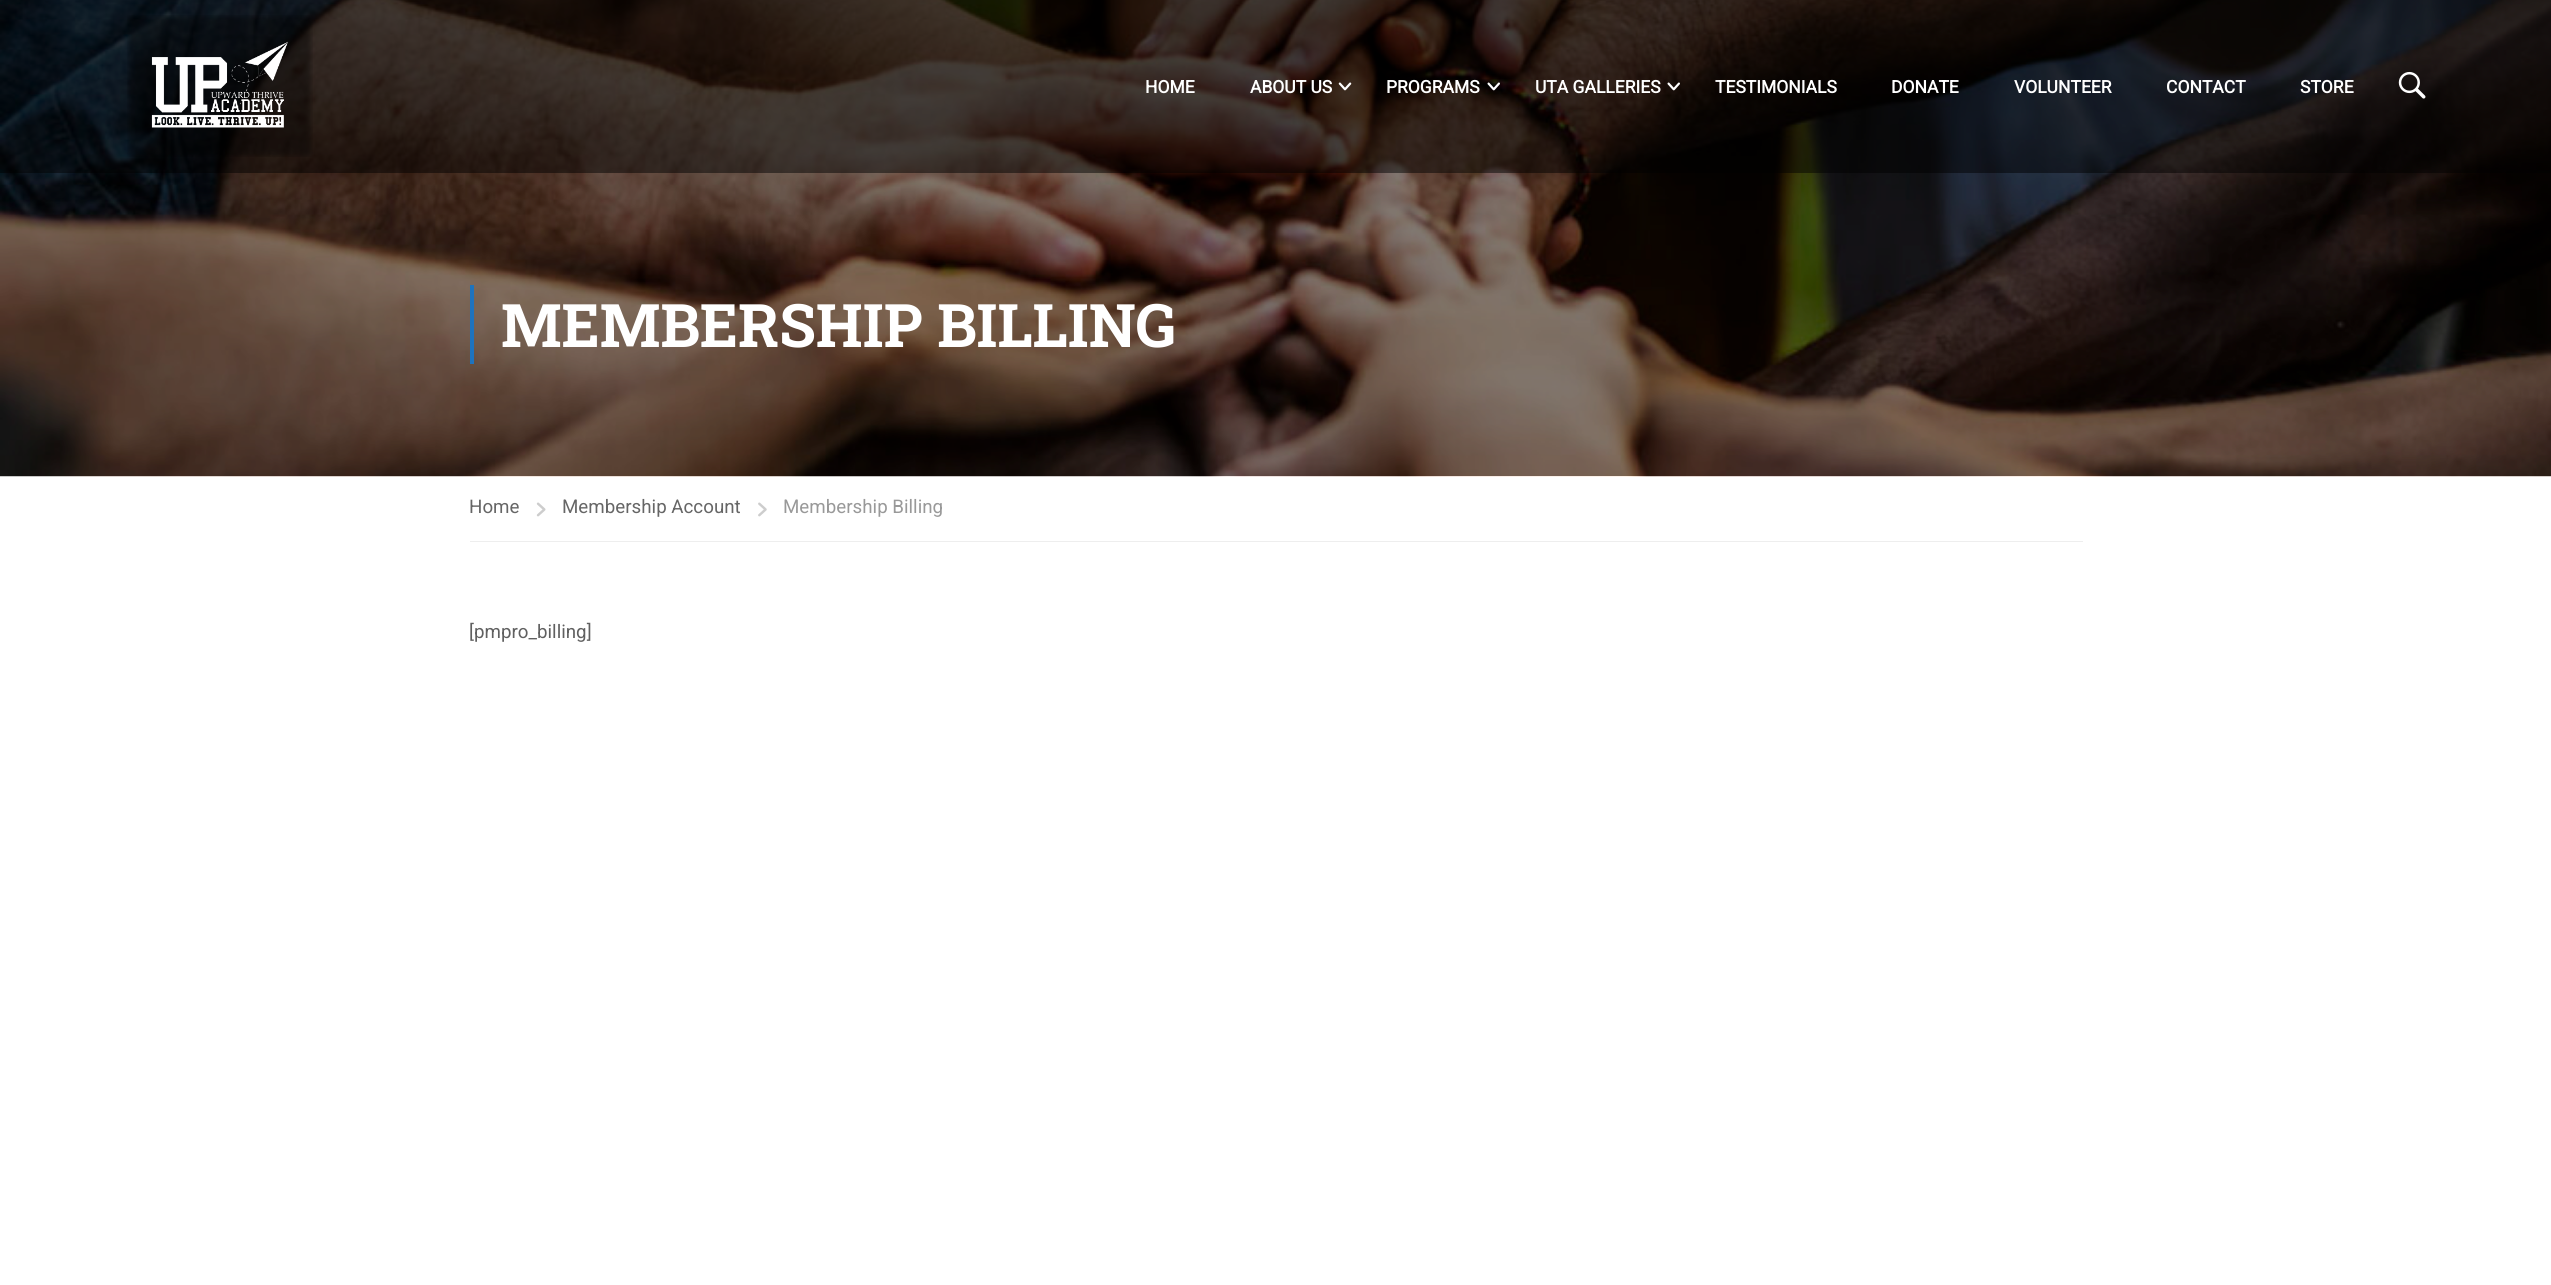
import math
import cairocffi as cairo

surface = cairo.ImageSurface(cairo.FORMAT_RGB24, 2551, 1285)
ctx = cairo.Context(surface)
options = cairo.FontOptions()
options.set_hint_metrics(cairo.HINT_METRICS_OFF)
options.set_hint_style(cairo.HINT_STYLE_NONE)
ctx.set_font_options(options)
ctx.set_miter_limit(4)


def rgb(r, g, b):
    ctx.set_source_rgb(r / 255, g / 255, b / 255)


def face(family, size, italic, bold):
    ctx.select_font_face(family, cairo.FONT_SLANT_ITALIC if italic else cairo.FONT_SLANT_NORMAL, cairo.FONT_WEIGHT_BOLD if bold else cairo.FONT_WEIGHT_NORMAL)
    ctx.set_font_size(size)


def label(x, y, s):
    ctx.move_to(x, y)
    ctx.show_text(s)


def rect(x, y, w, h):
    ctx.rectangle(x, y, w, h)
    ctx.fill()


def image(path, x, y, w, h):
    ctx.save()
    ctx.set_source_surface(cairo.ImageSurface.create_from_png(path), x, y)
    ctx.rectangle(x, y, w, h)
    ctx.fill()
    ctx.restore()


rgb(255, 255, 255)
ctx.paint()
image('image5.png', 0, 0, 2551, 477)
ctx.set_source_rgba(0, 0, 0, 0.49)
rect(0, 0, 2551, 173)
image('image0.png', 127, 15, 186, 142)
face('Roboto', 17.5, 0, 1)
rgb(255, 255, 255)
label(1145, 93, 'HOME')
label(1250, 93, 'ABOUT US')
image('image1.png', 1338, 82, 14, 9)
label(1386, 93, 'PROGRAMS')
image('image2.png', 1487, 82, 13, 9)
label(1535, 93, 'UTA GALLERIES')
image('image3.png', 1667, 82, 13, 9)
label(1715, 93, 'TESTIMONIALS')
label(1891, 93, 'DONATE')
label(2014, 93, 'VOLUNTEER')
label(2166, 93, 'CONTACT')
label(2300, 93, 'STORE')
image('image4.png', 2398, 71, 28, 28)
rgb(30, 115, 190)
rect(470, 285, 4, 79)
face('Roboto Slab', 60, 0, 1)
rgb(255, 255, 255)
label(501, 347, 'MEMBERSHIP BILLING')
rgb(238, 238, 238)
rect(470, 541, 1613, 1)
face('Roboto', 18.75, 0, 0)
rgb(102, 102, 102)
label(469, 513, 'Home')
image('image6.png', 536, 502, 10, 15)
label(562, 513, 'Membership Account')
image('image7.png', 758, 502, 9, 15)
rgb(153, 153, 153)
label(783, 513, 'Membership Billing')
rgb(96, 96, 96)
label(469, 638, '[pmpro_billing]')
surface.write_to_png('render.png')
